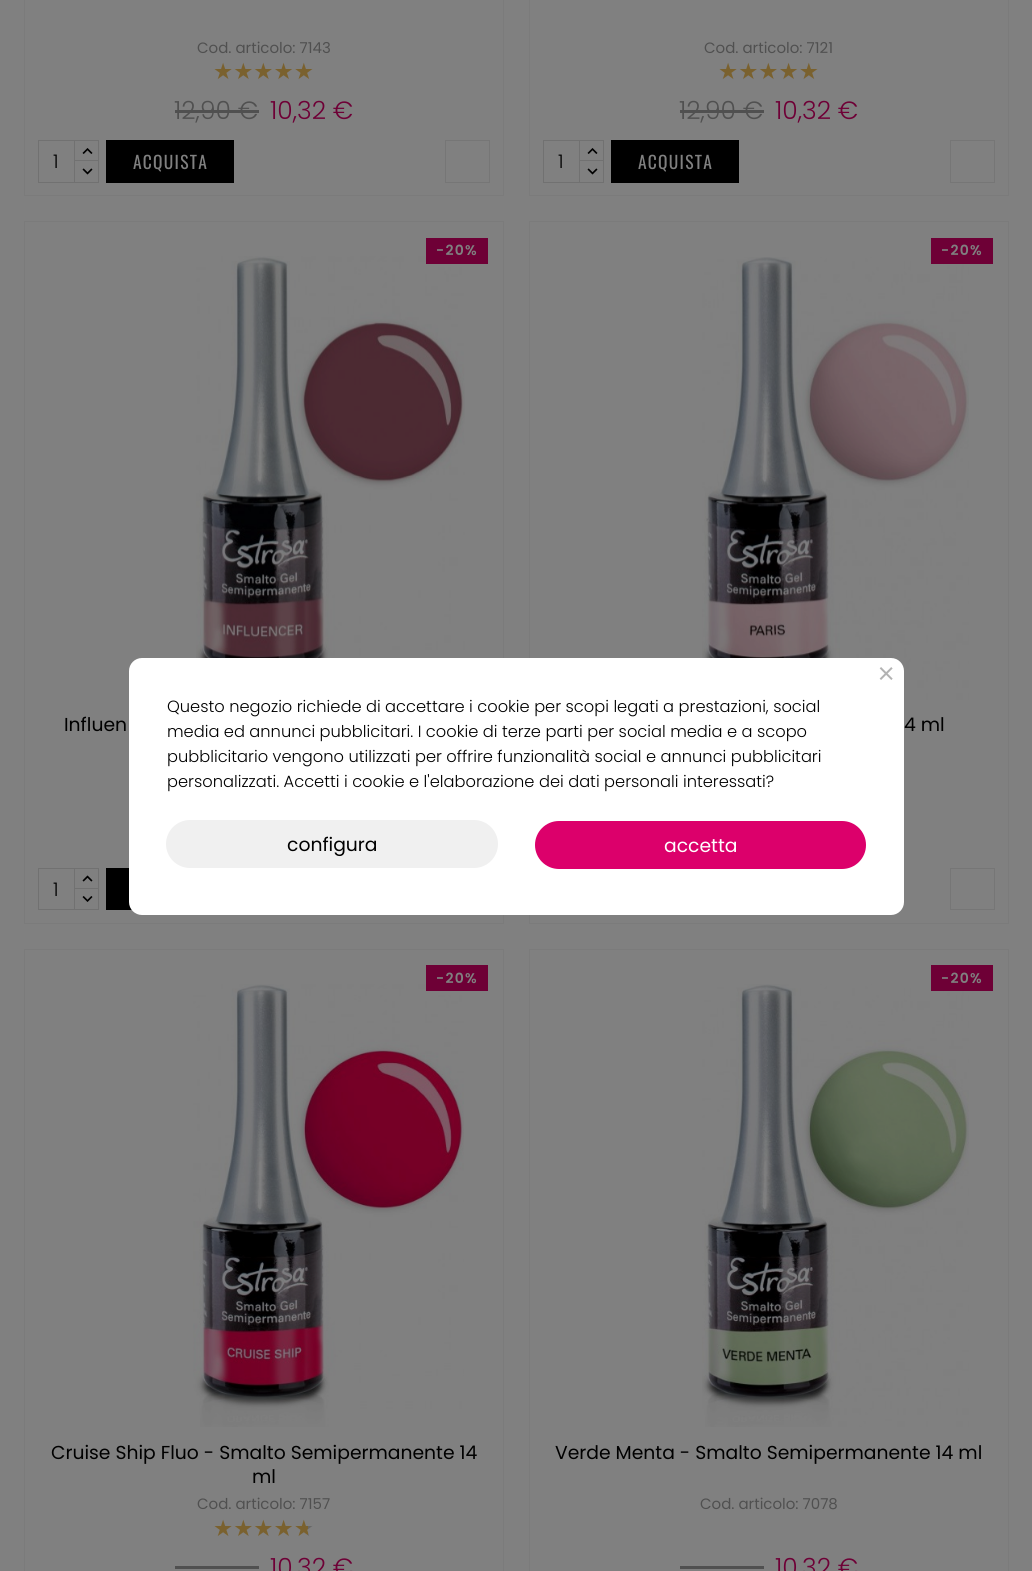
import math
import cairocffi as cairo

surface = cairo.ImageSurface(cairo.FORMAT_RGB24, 1032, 1571)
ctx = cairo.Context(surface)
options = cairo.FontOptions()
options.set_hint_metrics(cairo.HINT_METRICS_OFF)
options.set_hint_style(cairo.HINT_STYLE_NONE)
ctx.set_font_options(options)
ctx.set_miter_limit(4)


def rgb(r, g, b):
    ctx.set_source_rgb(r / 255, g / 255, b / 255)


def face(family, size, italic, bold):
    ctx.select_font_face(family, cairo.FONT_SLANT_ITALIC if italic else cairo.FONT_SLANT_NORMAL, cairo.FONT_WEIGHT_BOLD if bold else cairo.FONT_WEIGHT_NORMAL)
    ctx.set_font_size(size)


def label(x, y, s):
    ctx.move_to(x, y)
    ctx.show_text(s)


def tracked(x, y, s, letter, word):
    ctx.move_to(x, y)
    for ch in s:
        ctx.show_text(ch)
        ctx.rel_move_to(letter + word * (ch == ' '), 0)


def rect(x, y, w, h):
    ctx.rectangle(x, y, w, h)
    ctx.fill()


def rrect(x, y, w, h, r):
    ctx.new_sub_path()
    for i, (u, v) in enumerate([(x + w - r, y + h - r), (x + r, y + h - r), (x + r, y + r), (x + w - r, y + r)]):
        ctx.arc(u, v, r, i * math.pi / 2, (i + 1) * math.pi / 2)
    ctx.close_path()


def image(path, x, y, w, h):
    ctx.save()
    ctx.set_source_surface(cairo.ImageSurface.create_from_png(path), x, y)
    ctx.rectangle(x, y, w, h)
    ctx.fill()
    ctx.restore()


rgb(128, 128, 128)
ctx.paint()
ctx.rectangle(24.5, -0.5, 479, 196)
rgb(123, 123, 123)
ctx.set_line_width(1)
ctx.stroke()
face('Poppins', 15, 0, 0)
rgb(80, 80, 80)
label(197, 53, 'Cod. articolo: 7143')
face('DejaVu Sans', 22.5, 0, 0)
gradient = cairo.LinearGradient(213, 71, 314, 71)
gradient.add_color_stop_rgba(1, 0.478, 0.38, 0.18, 1)
gradient.add_color_stop_rgba(1, 0.408, 0.408, 0.408, 1)
ctx.set_source(gradient)
label(213, 79, '★★★★★')
face('Poppins Light', 25, 0, 0)
rgb(80, 80, 80)
label(174, 119, '12,90 €')
rect(175, 110, 84, 3)
rgb(110, 0, 54)
label(270, 119, '10,32 €')
ctx.rectangle(74.5, 140.5, 24, 22)
rgb(113, 113, 113)
ctx.stroke()
rgb(128, 128, 128)
rect(75, 162, 23, 1)
ctx.rectangle(74.5, 160.5, 24, 22)
rgb(113, 113, 113)
ctx.stroke()
ctx.rectangle(38.5, 140.5, 36, 42)
ctx.stroke()
face('Poppins Light', 18.75, 0, 0)
rgb(0, 0, 0)
label(53, 168, '1')
image('image0.png', 82, 148, 11, 6)
image('image1.png', 82, 168, 11, 7)
rect(106, 140, 128, 43)
face('Oswald', 17.5, 0, 0)
rgb(128, 128, 128)
tracked(133, 169, 'ACQUISTA', 1.25, 0)
ctx.rectangle(445.5, 140.5, 44, 42)
rgb(118, 118, 118)
ctx.stroke()
ctx.rectangle(529.5, -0.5, 479, 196)
rgb(123, 123, 123)
ctx.stroke()
face('Poppins', 15, 0, 0)
rgb(80, 80, 80)
label(704, 53, 'Cod. articolo: 7121')
face('DejaVu Sans', 22.5, 0, 0)
gradient = cairo.LinearGradient(718, 71, 819, 71)
gradient.add_color_stop_rgba(1, 0.478, 0.38, 0.18, 1)
gradient.add_color_stop_rgba(1, 0.408, 0.408, 0.408, 1)
ctx.set_source(gradient)
label(718, 79, '★★★★★')
face('Poppins Light', 25, 0, 0)
rgb(80, 80, 80)
label(679, 119, '12,90 €')
rect(680, 110, 84, 3)
rgb(110, 0, 54)
label(775, 119, '10,32 €')
ctx.rectangle(579.5, 140.5, 24, 22)
rgb(113, 113, 113)
ctx.stroke()
rgb(128, 128, 128)
rect(580, 162, 23, 1)
ctx.rectangle(579.5, 160.5, 24, 22)
rgb(113, 113, 113)
ctx.stroke()
ctx.rectangle(543.5, 140.5, 36, 42)
ctx.stroke()
face('Poppins Light', 18.75, 0, 0)
rgb(0, 0, 0)
label(558, 168, '1')
image('image0.png', 587, 148, 11, 6)
image('image1.png', 587, 168, 11, 7)
rect(611, 140, 128, 43)
face('Oswald', 17.5, 0, 0)
rgb(128, 128, 128)
tracked(638, 169, 'ACQUISTA', 1.25, 0)
ctx.rectangle(950.5, 140.5, 44, 42)
rgb(118, 118, 118)
ctx.stroke()
ctx.rectangle(24.5, 221.5, 479, 702)
rgb(123, 123, 123)
ctx.stroke()
image('image2.png', 196, 256, 269, 402)
rgb(110, 0, 54)
rect(426, 238, 62, 26)
face('Poppins SemiBold', 14, 0, 0)
rgb(128, 128, 128)
tracked(436, 255, '-20%', 1.25, 0)
face('Poppins', 18.75, 0, 0)
rgb(0, 0, 0)
label(64, 731, 'Influen')
ctx.rectangle(74.5, 868.5, 24, 21)
rgb(113, 113, 113)
ctx.stroke()
rgb(128, 128, 128)
rect(75, 889, 23, 1)
ctx.rectangle(74.5, 888.5, 24, 21)
rgb(113, 113, 113)
ctx.stroke()
ctx.rectangle(38.5, 868.5, 36, 41)
ctx.stroke()
face('Poppins Light', 18.75, 0, 0)
rgb(0, 0, 0)
label(53, 896, '1')
image('image3.png', 82, 875, 11, 7)
image('image4.png', 82, 896, 11, 6)
rect(106, 868, 26, 42)
ctx.rectangle(529.5, 221.5, 479, 702)
rgb(123, 123, 123)
ctx.stroke()
image('image5.png', 702, 257, 267, 443)
rgb(110, 0, 54)
rect(931, 238, 62, 26)
face('Poppins SemiBold', 14, 0, 0)
rgb(128, 128, 128)
tracked(941, 255, '-20%', 1.25, 0)
face('Poppins', 18.75, 0, 0)
rgb(0, 0, 0)
label(904, 731, '4 ml')
ctx.rectangle(950.5, 868.5, 44, 41)
rgb(118, 118, 118)
ctx.stroke()
ctx.rectangle(24.5, 949.5, 479, 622)
rgb(123, 123, 123)
ctx.stroke()
image('image6.png', 193, 984, 271, 443)
rgb(110, 0, 54)
rect(426, 965, 62, 26)
face('Poppins SemiBold', 14, 0, 0)
rgb(128, 128, 128)
tracked(436, 983, '-20%', 1.25, 0)
face('Poppins', 18.75, 0, 0)
rgb(0, 0, 0)
label(51, 1459, 'Cruise Ship Fluo - Smalto Semipermanente 14')
label(252, 1483, 'ml')
face('Poppins', 15, 0, 0)
rgb(80, 80, 80)
label(197, 1509, 'Cod. articolo: 7157')
face('DejaVu Sans', 22.5, 0, 0)
gradient = cairo.LinearGradient(213, 1528, 314, 1528)
gradient.add_color_stop_rgba(0.94, 0.478, 0.38, 0.18, 1)
gradient.add_color_stop_rgba(0.94, 0.408, 0.408, 0.408, 1)
ctx.set_source(gradient)
label(213, 1536, '★★★★★')
rgb(80, 80, 80)
rect(175, 1566, 84, 3)
face('Poppins Light', 25, 0, 0)
rgb(110, 0, 54)
label(270, 1576, '10,32 €')
ctx.rectangle(529.5, 949.5, 479, 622)
rgb(123, 123, 123)
ctx.stroke()
image('image7.png', 702, 984, 267, 443)
rgb(110, 0, 54)
rect(931, 965, 62, 26)
face('Poppins SemiBold', 14, 0, 0)
rgb(128, 128, 128)
tracked(941, 983, '-20%', 1.25, 0)
face('Poppins', 18.75, 0, 0)
rgb(0, 0, 0)
label(555, 1459, 'Verde Menta - Smalto Semipermanente 14 ml')
face('Poppins', 15, 0, 0)
rgb(80, 80, 80)
label(700, 1509, 'Cod. articolo: 7078')
rect(680, 1566, 84, 3)
face('Poppins Light', 25, 0, 0)
rgb(110, 0, 54)
label(775, 1576, '10,32 €')
rgb(255, 255, 255)
rrect(129, 658, 775, 257, 13)
ctx.fill()
face('Poppins Light', 31, 0, 0)
rgb(179, 179, 179)
label(877, 685, '×')
face('Poppins Light', 16.25, 0, 0)
rgb(0, 0, 0)
label(167, 712, 'Questo negozio richiede di accettare i cookie per scopi legati a prestazioni, social')
label(167, 737, 'media ed annunci pubblicitari. I cookie di terze parti per social media e a scopo')
label(167, 762, 'pubblicitario vengono utilizzati per offrire funzionalità social e annunci pubblicitari')
label(167, 787, 'personalizzati. Accetti i cookie e l\'elaborazione dei dati personali interessati?')
rgb(240, 240, 240)
rrect(166, 820, 332, 48, 24)
ctx.fill()
face('Poppins', 18.75, 0, 0)
rgb(0, 0, 0)
label(287, 851, 'configura')
rgb(220, 0, 107)
rrect(535, 821, 331, 48, 24)
ctx.fill()
rgb(255, 255, 255)
label(664, 852, 'accetta')
surface.write_to_png('render.png')
